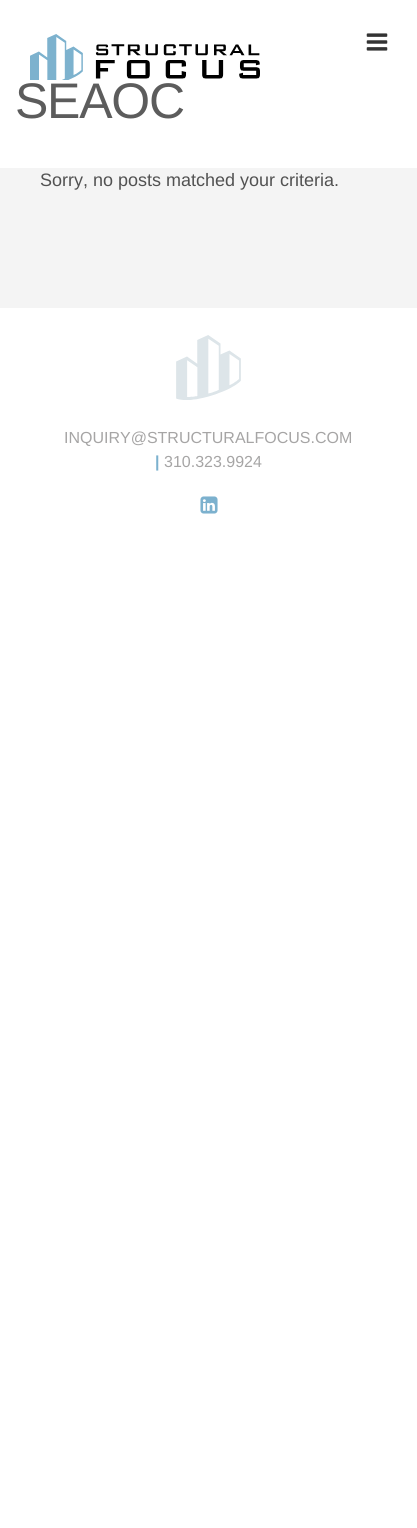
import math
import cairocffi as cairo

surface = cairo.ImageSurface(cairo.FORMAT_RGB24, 417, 1528)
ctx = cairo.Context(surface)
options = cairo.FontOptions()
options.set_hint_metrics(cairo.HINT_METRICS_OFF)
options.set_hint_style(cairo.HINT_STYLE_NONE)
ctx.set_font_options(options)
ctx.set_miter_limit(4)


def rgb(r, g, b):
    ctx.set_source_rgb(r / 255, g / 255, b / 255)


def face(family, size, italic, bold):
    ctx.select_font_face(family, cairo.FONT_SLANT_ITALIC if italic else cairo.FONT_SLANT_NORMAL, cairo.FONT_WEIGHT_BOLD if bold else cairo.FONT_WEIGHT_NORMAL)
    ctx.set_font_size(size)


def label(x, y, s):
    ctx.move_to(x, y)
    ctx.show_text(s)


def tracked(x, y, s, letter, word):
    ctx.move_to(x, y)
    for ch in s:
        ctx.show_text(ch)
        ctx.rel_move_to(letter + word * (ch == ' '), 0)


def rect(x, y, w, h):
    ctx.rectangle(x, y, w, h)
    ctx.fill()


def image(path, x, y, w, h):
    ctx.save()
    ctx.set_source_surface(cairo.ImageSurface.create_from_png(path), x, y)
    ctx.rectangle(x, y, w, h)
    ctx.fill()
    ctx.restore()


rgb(255, 255, 255)
ctx.paint()
image('image0.png', 30, 34, 230, 46)
image('image1.png', 366, 33, 22, 18)
face('Liberation Sans', 50, 0, 0)
rgb(92, 92, 92)
tracked(15, 118, 'SEAOC', -1.25, 0)
rgb(244, 244, 244)
rect(0, 168, 417, 140)
face('Liberation Sans', 18, 0, 0)
rgb(82, 82, 82)
label(40, 186, 'Sorry, no posts matched your criteria.')
image('image2.png', 176, 335, 65, 65)
face('Liberation Sans', 16, 0, 0)
rgb(166, 165, 165)
label(64, 443, 'INQUIRY@STRUCTURALFOCUS.COM')
face('Liberation Sans', 16, 0, 1)
rgb(124, 177, 206)
label(155, 467, '|')
face('Liberation Sans', 16, 0, 0)
rgb(166, 165, 165)
label(164, 467, '310.323.9924')
image('image3.png', 200, 496, 18, 18)
surface.write_to_png('render.png')
